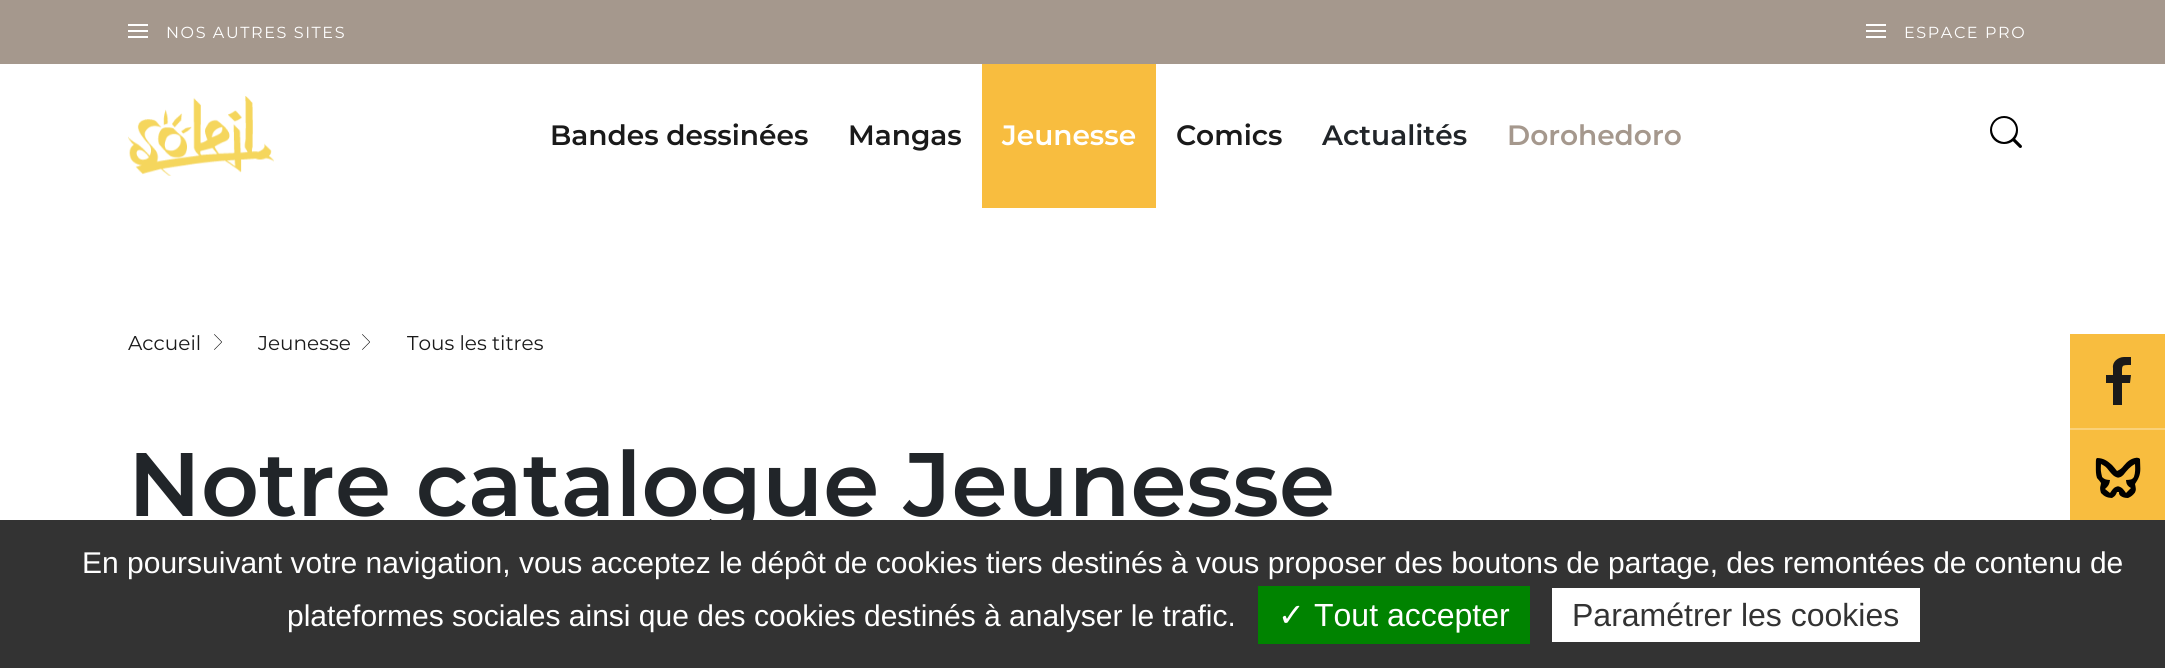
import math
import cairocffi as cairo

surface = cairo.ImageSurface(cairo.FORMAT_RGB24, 2165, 668)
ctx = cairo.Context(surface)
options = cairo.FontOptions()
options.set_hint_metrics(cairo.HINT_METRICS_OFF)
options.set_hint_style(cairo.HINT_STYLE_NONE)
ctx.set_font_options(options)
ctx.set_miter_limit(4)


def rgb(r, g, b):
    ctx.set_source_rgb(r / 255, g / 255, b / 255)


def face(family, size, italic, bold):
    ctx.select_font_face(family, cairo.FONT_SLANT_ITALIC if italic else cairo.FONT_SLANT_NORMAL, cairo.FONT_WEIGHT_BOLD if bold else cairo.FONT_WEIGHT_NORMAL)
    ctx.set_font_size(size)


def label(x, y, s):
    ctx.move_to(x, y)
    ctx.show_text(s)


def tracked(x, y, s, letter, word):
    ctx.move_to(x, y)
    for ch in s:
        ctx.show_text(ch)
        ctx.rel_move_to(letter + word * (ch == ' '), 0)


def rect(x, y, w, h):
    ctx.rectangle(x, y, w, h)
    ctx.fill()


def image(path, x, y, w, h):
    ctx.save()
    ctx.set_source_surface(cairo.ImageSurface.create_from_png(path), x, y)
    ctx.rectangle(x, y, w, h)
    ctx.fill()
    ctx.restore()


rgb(255, 255, 255)
ctx.paint()
rgb(165, 152, 141)
rect(0, 0, 2165, 64)
rgb(255, 255, 255)
rect(128, 30, 20, 2)
rect(128, 24, 20, 2)
rect(128, 36, 20, 2)
face('Montserrat', 16, 0, 0)
tracked(166, 38, 'NOS AUTRES SITES', 1.6, 0)
rect(1866, 30, 20, 2)
rect(1866, 24, 20, 2)
rect(1866, 36, 20, 2)
tracked(1904, 38, 'ESPACE PRO', 1.6, 0)
image('image0.png', 128, 96, 146, 80)
face('Montserrat SemiBold', 28, 0, 0)
rgb(26, 26, 26)
label(550, 145, 'Bandes dessinées')
label(848, 145, 'Mangas')
rgb(248, 189, 63)
rect(982, 64, 174, 144)
rgb(255, 255, 255)
label(1002, 145, 'Jeunesse')
rgb(26, 26, 26)
label(1176, 145, 'Comics')
rgb(33, 37, 41)
label(1322, 145, 'Actualités')
rgb(165, 152, 141)
label(1507, 145, 'Dorohedoro')
image('image1.png', 1990, 116, 32, 32)
face('Montserrat', 20, 0, 0)
rgb(26, 26, 26)
label(128, 350, 'Accueil')
image('image2.png', 214, 334, 8, 16)
label(258, 350, 'Jeunesse')
image('image2.png', 362, 334, 8, 16)
label(407, 350, 'Tous les titres')
face('Montserrat SemiBold', 90, 0, 0)
rgb(33, 37, 41)
label(128, 516, 'Notre catalogue Jeunesse')
rgb(248, 189, 63)
rect(2070, 334, 95, 186)
rgb(250, 209, 121)
rect(2070, 428, 95, 2)
rgb(26, 26, 26)
ctx.new_path()
ctx.move_to(2122, 405)
ctx.line_to(2122, 383)
ctx.line_to(2130, 383)
ctx.line_to(2131, 375)
ctx.line_to(2122, 375)
ctx.curve_to(2122, 365, 2121, 365, 2131, 365)
ctx.line_to(2131, 357)
ctx.line_to(2124, 357)
ctx.curve_to(2118, 357, 2112, 362, 2113, 368)
ctx.line_to(2113, 375)
ctx.line_to(2106, 375)
ctx.line_to(2106, 383)
ctx.line_to(2113, 383)
ctx.line_to(2113, 405)
ctx.close_path()
ctx.fill()
image('image3.png', 2095, 457, 46, 41)
rgb(51, 51, 51)
rect(0, 520, 2165, 148)
face('Liberation Sans', 30, 0, 0)
rgb(255, 255, 255)
label(82, 573, 'En poursuivant votre navigation, vous acceptez le dépôt de cookies tiers destinés à vous proposer des boutons de partage, des remontées de contenu de')
label(287, 626, 'plateformes sociales ainsi que des cookies destinés à analyser le trafic.')
rgb(0, 131, 0)
rect(1258, 586, 272, 58)
face('DejaVu Sans', 32, 0, 0)
rgb(255, 255, 255)
label(1278, 626, '✓')
face('Liberation Sans', 32, 0, 0)
label(1314, 626, 'Tout accepter')
rect(1552, 588, 368, 54)
rgb(51, 51, 51)
label(1572, 626, 'Paramétrer les cookies')
surface.write_to_png('render.png')
